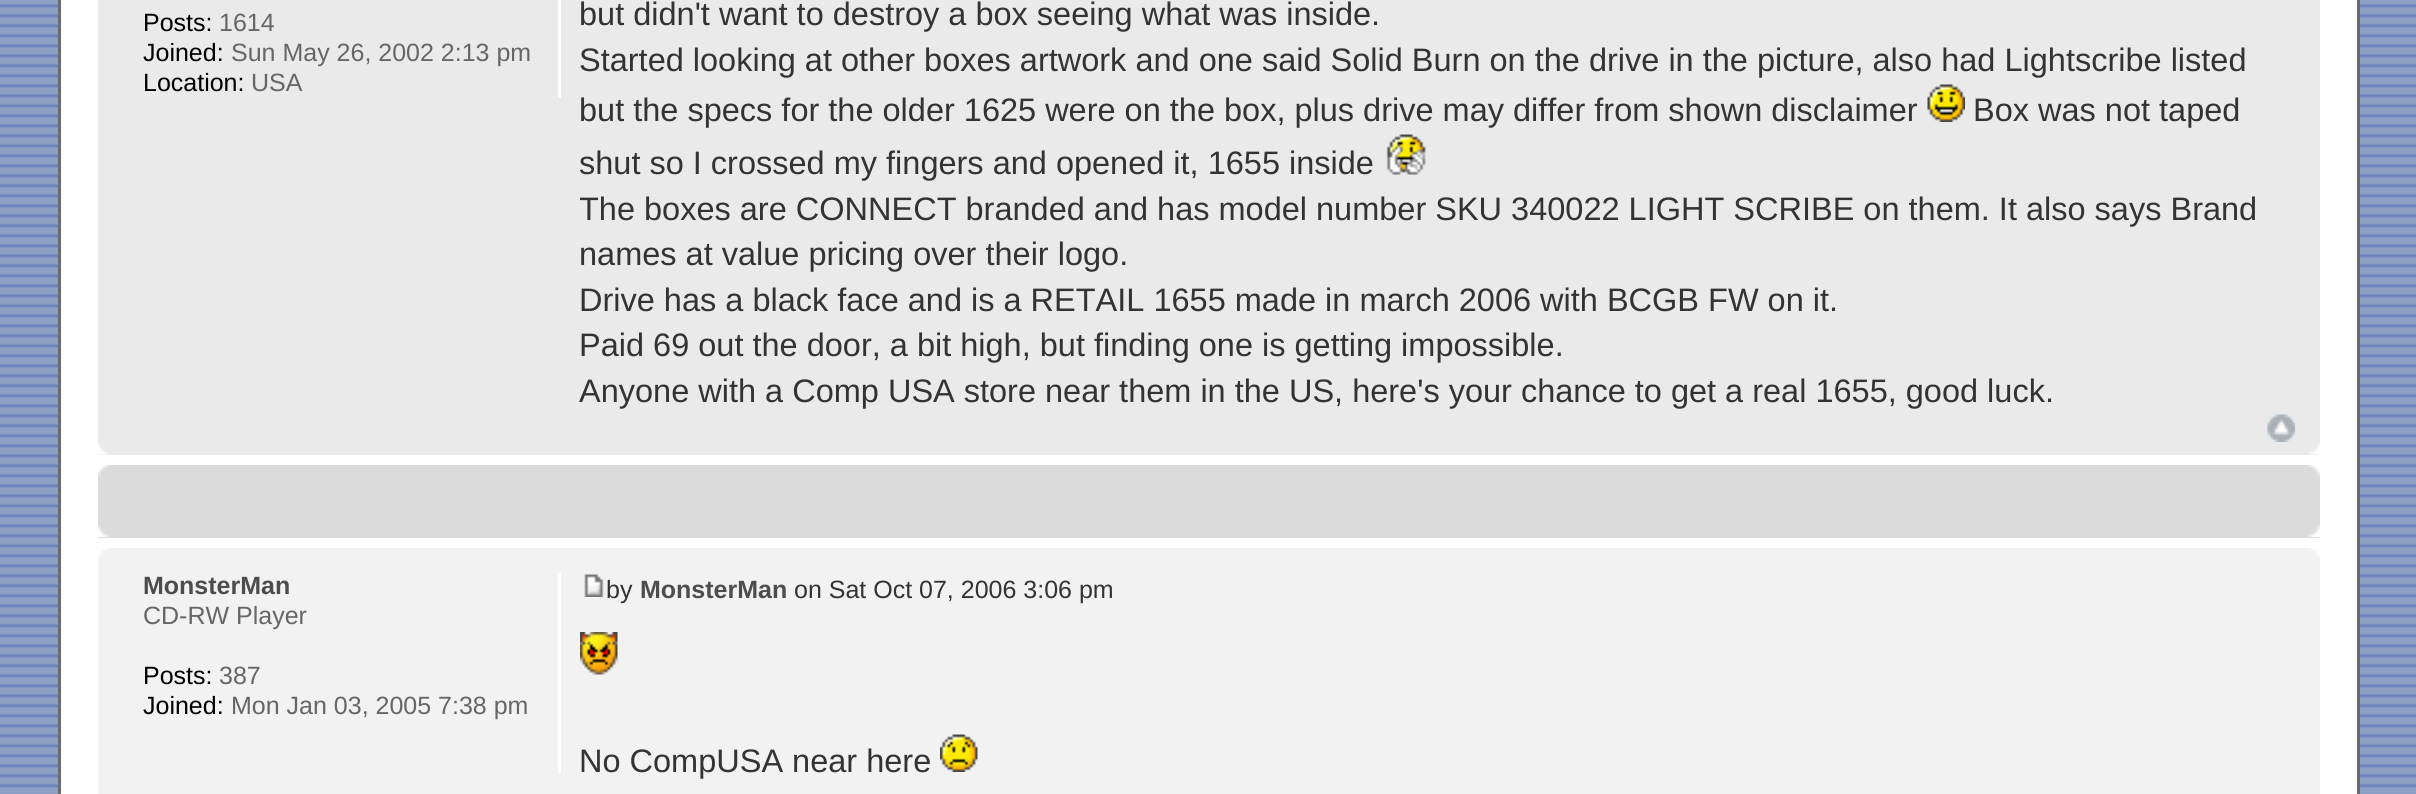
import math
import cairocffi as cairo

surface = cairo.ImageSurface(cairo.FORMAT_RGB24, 2416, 794)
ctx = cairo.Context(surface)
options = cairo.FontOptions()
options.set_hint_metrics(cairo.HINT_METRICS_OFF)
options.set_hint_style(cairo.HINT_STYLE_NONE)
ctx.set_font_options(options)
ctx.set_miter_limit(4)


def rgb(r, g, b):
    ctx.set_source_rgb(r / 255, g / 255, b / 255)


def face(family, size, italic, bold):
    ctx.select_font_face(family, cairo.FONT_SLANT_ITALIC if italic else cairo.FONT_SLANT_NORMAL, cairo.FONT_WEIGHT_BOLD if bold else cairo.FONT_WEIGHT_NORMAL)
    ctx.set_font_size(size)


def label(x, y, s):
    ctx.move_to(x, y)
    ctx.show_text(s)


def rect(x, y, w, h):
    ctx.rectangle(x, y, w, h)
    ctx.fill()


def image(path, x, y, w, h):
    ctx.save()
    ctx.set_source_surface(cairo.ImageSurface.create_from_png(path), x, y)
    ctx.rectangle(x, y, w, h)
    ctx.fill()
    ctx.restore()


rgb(255, 255, 255)
ctx.paint()
image('image0.png', 0, 0, 2416, 794)
rgb(255, 255, 255)
ctx.rectangle(59.5, -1.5, 2299, 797)
ctx.fill_preserve()
rgb(107, 107, 107)
ctx.set_line_width(3)
ctx.stroke()
rgb(234, 234, 234)
rect(98, 0, 2222, 455)
rgb(255, 255, 255)
rect(558, 0, 3, 98)
face('Liberation Sans', 25, 0, 0)
rgb(0, 0, 0)
label(143, 31, 'Posts:')
rgb(102, 102, 102)
label(219, 31, '1614')
rgb(0, 0, 0)
label(143, 61, 'Joined:')
rgb(102, 102, 102)
label(231, 61, 'Sun May 26, 2002 2:13 pm')
rgb(0, 0, 0)
label(143, 91, 'Location:')
rgb(102, 102, 102)
label(251, 91, 'USA')
face('Liberation Sans', 32.5, 0, 0)
rgb(51, 51, 51)
label(579, 25, 'but didn\'t want to destroy a box seeing what was inside.')
label(579, 71, 'Started looking at other boxes artwork and one said Solid Burn on the drive in the picture, also had Lightscribe listed')
label(579, 121, 'but the specs for the older 1625 were on the box, plus drive may differ from shown disclaimer')
image('image1.png', 1927, 84, 38, 38)
label(1973, 121, 'Box was not taped')
label(579, 174, 'shut so I crossed my fingers and opened it, 1655 inside')
image('image2.png', 1386, 134, 40, 41)
ctx.save()
ctx.rectangle(580, 0, 1715, 415)
ctx.clip()
label(579, 220, 'The boxes are CONNECT branded and has model number SKU 340022 LIGHT SCRIBE on them. It also says Brand')
ctx.restore()
label(579, 265, 'names at value pricing over their logo.')
label(579, 311, 'Drive has a black face and is a RETAIL 1655 made in march 2006 with BCGB FW on it.')
label(579, 356, 'Paid 69 out the door, a bit high, but finding one is getting impossible.')
label(579, 402, 'Anyone with a Comp USA store near them in the US, here\'s your chance to get a real 1655, good luck.')
image('image3.png', 2267, 414, 28, 28)
image('image4.png', 98, 442, 11, 13)
image('image5.png', 2308, 442, 12, 13)
rgb(219, 219, 219)
rect(98, 465, 2222, 73)
image('image6.png', 98, 465, 12, 12)
image('image7.png', 2307, 465, 13, 12)
image('image8.png', 98, 525, 12, 12)
image('image9.png', 2307, 525, 13, 12)
rgb(242, 242, 242)
rect(98, 548, 2222, 246)
image('image10.png', 98, 548, 10, 10)
image('image11.png', 2310, 548, 10, 10)
rgb(255, 255, 255)
rect(558, 573, 3, 200)
face('Liberation Sans', 25, 0, 1)
rgb(77, 77, 77)
label(143, 594, 'MonsterMan')
face('Liberation Sans', 25, 0, 0)
rgb(102, 102, 102)
label(143, 624, 'CD-RW Player')
rgb(0, 0, 0)
label(143, 684, 'Posts:')
rgb(102, 102, 102)
label(219, 684, '387')
rgb(0, 0, 0)
label(143, 714, 'Joined:')
rgb(102, 102, 102)
label(231, 714, 'Mon Jan 03, 2005 7:38 pm')
image('image12.png', 584, 574, 20, 23)
rgb(51, 51, 51)
label(606, 598, 'by')
face('Liberation Sans', 25, 0, 1)
rgb(77, 77, 77)
label(640, 598, 'MonsterMan')
face('Liberation Sans', 25, 0, 0)
rgb(51, 51, 51)
label(794, 598, 'on Sat Oct 07, 2006 3:06 pm')
image('image13.png', 580, 632, 38, 43)
face('Liberation Sans', 32.5, 0, 0)
label(579, 772, 'No CompUSA near here')
image('image14.png', 940, 734, 38, 38)
surface.write_to_png('render.png')
